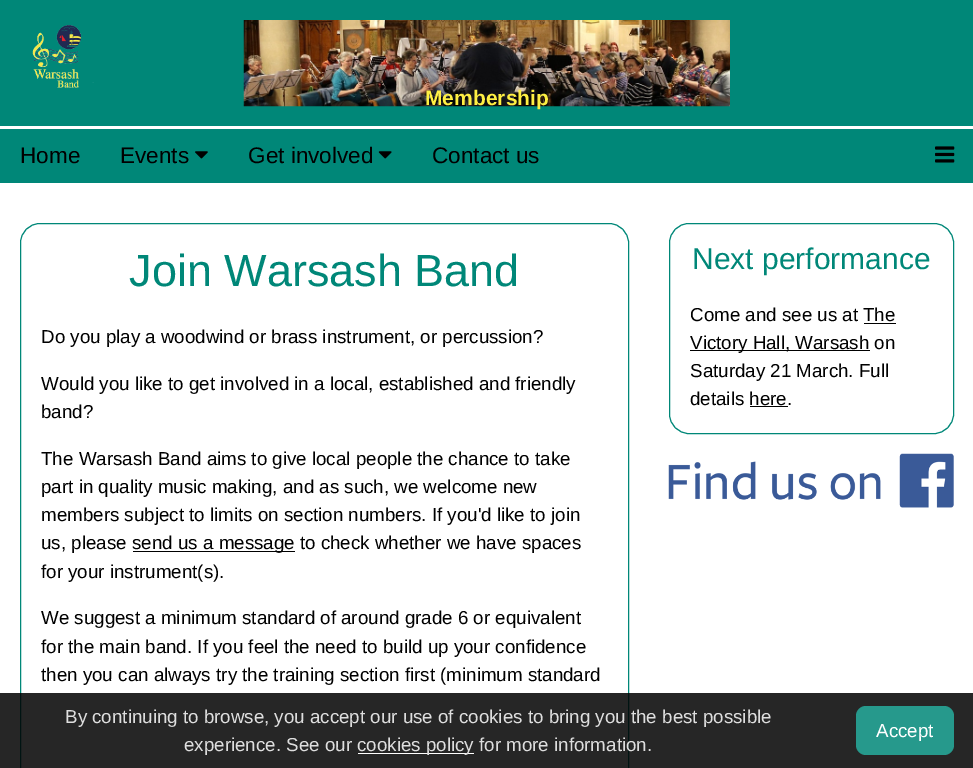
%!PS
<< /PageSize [973 768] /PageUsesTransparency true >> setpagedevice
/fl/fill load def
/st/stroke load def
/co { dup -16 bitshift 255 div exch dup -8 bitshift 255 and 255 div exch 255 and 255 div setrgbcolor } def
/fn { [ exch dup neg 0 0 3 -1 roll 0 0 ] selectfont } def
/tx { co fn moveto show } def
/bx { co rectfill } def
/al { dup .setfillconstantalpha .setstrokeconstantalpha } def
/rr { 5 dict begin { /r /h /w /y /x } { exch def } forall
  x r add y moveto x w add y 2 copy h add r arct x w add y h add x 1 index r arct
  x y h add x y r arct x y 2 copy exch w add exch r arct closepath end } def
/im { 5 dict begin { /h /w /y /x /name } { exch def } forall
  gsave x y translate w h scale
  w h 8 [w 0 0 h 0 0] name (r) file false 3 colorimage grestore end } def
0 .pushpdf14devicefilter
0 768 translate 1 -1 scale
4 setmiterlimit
0 0 973 768 16#FFFFFF bx
0 0 973 126 16#008778 bx
(media/1.raw) 32 25 62 63 im
(media/2.raw) 243 20 487 87 im
0 129 973 54 16#008778 bx
(media/3.raw) 195 151 13 8 im
(media/4.raw) 378 151 14 8 im
(media/5.raw) 935 146 20 17 im
20.5 223.5 608 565 19.5 rr st
133 551 162 1 16#000000 bx
16#008778 co
669.5 223.5 284 210 19.5 rr st
864 323 32 1 16#000000 bx
690 350 180 1 16#000000 bx
750 406 38 1 16#000000 bx
(media/6.raw) 668 453 286 55 im
0.85 al
0 693 973 75 16#000000 bx
1 al
358 753 116 1 16#FFFFFF bx
16#26998C co
856 706 98 49 10 rr fl
(Membership) 425 105 /LiberationSans-Bold 21 16#FFF043 tx
(Home) 20 163 /LiberationSans-Regular 22.5 16#000000 tx
(Events) 120 163 /LiberationSans-Regular 22.5 16#000000 tx
(Get involved) 248 163 /LiberationSans-Regular 22.5 16#000000 tx
(Contact us) 432 163 /LiberationSans-Regular 22.5 16#000000 tx
(Join Warsash Band) 129 286 /LiberationSans-Regular 45 16#008778 tx
(Do you play a woodwind or brass instrument, or percussion?) 41 343 /LiberationSans-Regular 18.75 16#000000 tx
(Would you like to get involved in a local, established and friendly) 41 390 /LiberationSans-Regular 18.75 16#000000 tx
(band?) 41 418 /LiberationSans-Regular 18.75 16#000000 tx
(The Warsash Band aims to give local people the chance to take) 41 465 /LiberationSans-Regular 18.75 16#000000 tx
(part in quality music making, and as such, we welcome new) 41 493 /LiberationSans-Regular 18.75 16#000000 tx
(members subject to limits on section numbers. If you'd like to join) 41 521 /LiberationSans-Regular 18.75 16#000000 tx
(us, please) 41 549 /LiberationSans-Regular 18.75 16#000000 tx
(send us a message to check whether we have spaces) 132 549 /LiberationSans-Regular 18.75 16#000000 tx
(for your instrument\(s\).) 41 578 /LiberationSans-Regular 18.75 16#000000 tx
(We suggest a minimum standard of around grade 6 or equivalent) 41 624 /LiberationSans-Regular 18.75 16#000000 tx
(for the main band. If you feel the need to build up your confidence) 41 653 /LiberationSans-Regular 18.75 16#000000 tx
(then you can always try the training section first \(minimum standard) 41 681 /LiberationSans-Regular 18.75 16#000000 tx
(Next performance) 692 269 /LiberationSans-Regular 30 16#008778 tx
(Come and see us at The) 690 321 /LiberationSans-Regular 18.75 16#000000 tx
(Victory Hall, Warsash on) 690 349 /LiberationSans-Regular 18.75 16#000000 tx
(Saturday 21 March. Full) 690 377 /LiberationSans-Regular 18.75 16#000000 tx
(details here.) 690 405 /LiberationSans-Regular 18.75 16#000000 tx
(By continuing to browse, you accept our use of cookies to bring you the best possible) 65 723 /LiberationSans-Regular 18.75 16#DEDEDE tx
(experience. See our) 184 751 /LiberationSans-Regular 18.75 16#DEDEDE tx
(cookies policy) 357 751 /LiberationSans-Regular 18.75 16#DEDEDE tx
(for more information.) 479 751 /LiberationSans-Regular 18.75 16#DEDEDE tx
(Accept) 876 737 /LiberationSans-Regular 18.75 16#FFFFFF tx
.poppdf14devicefilter showpage
